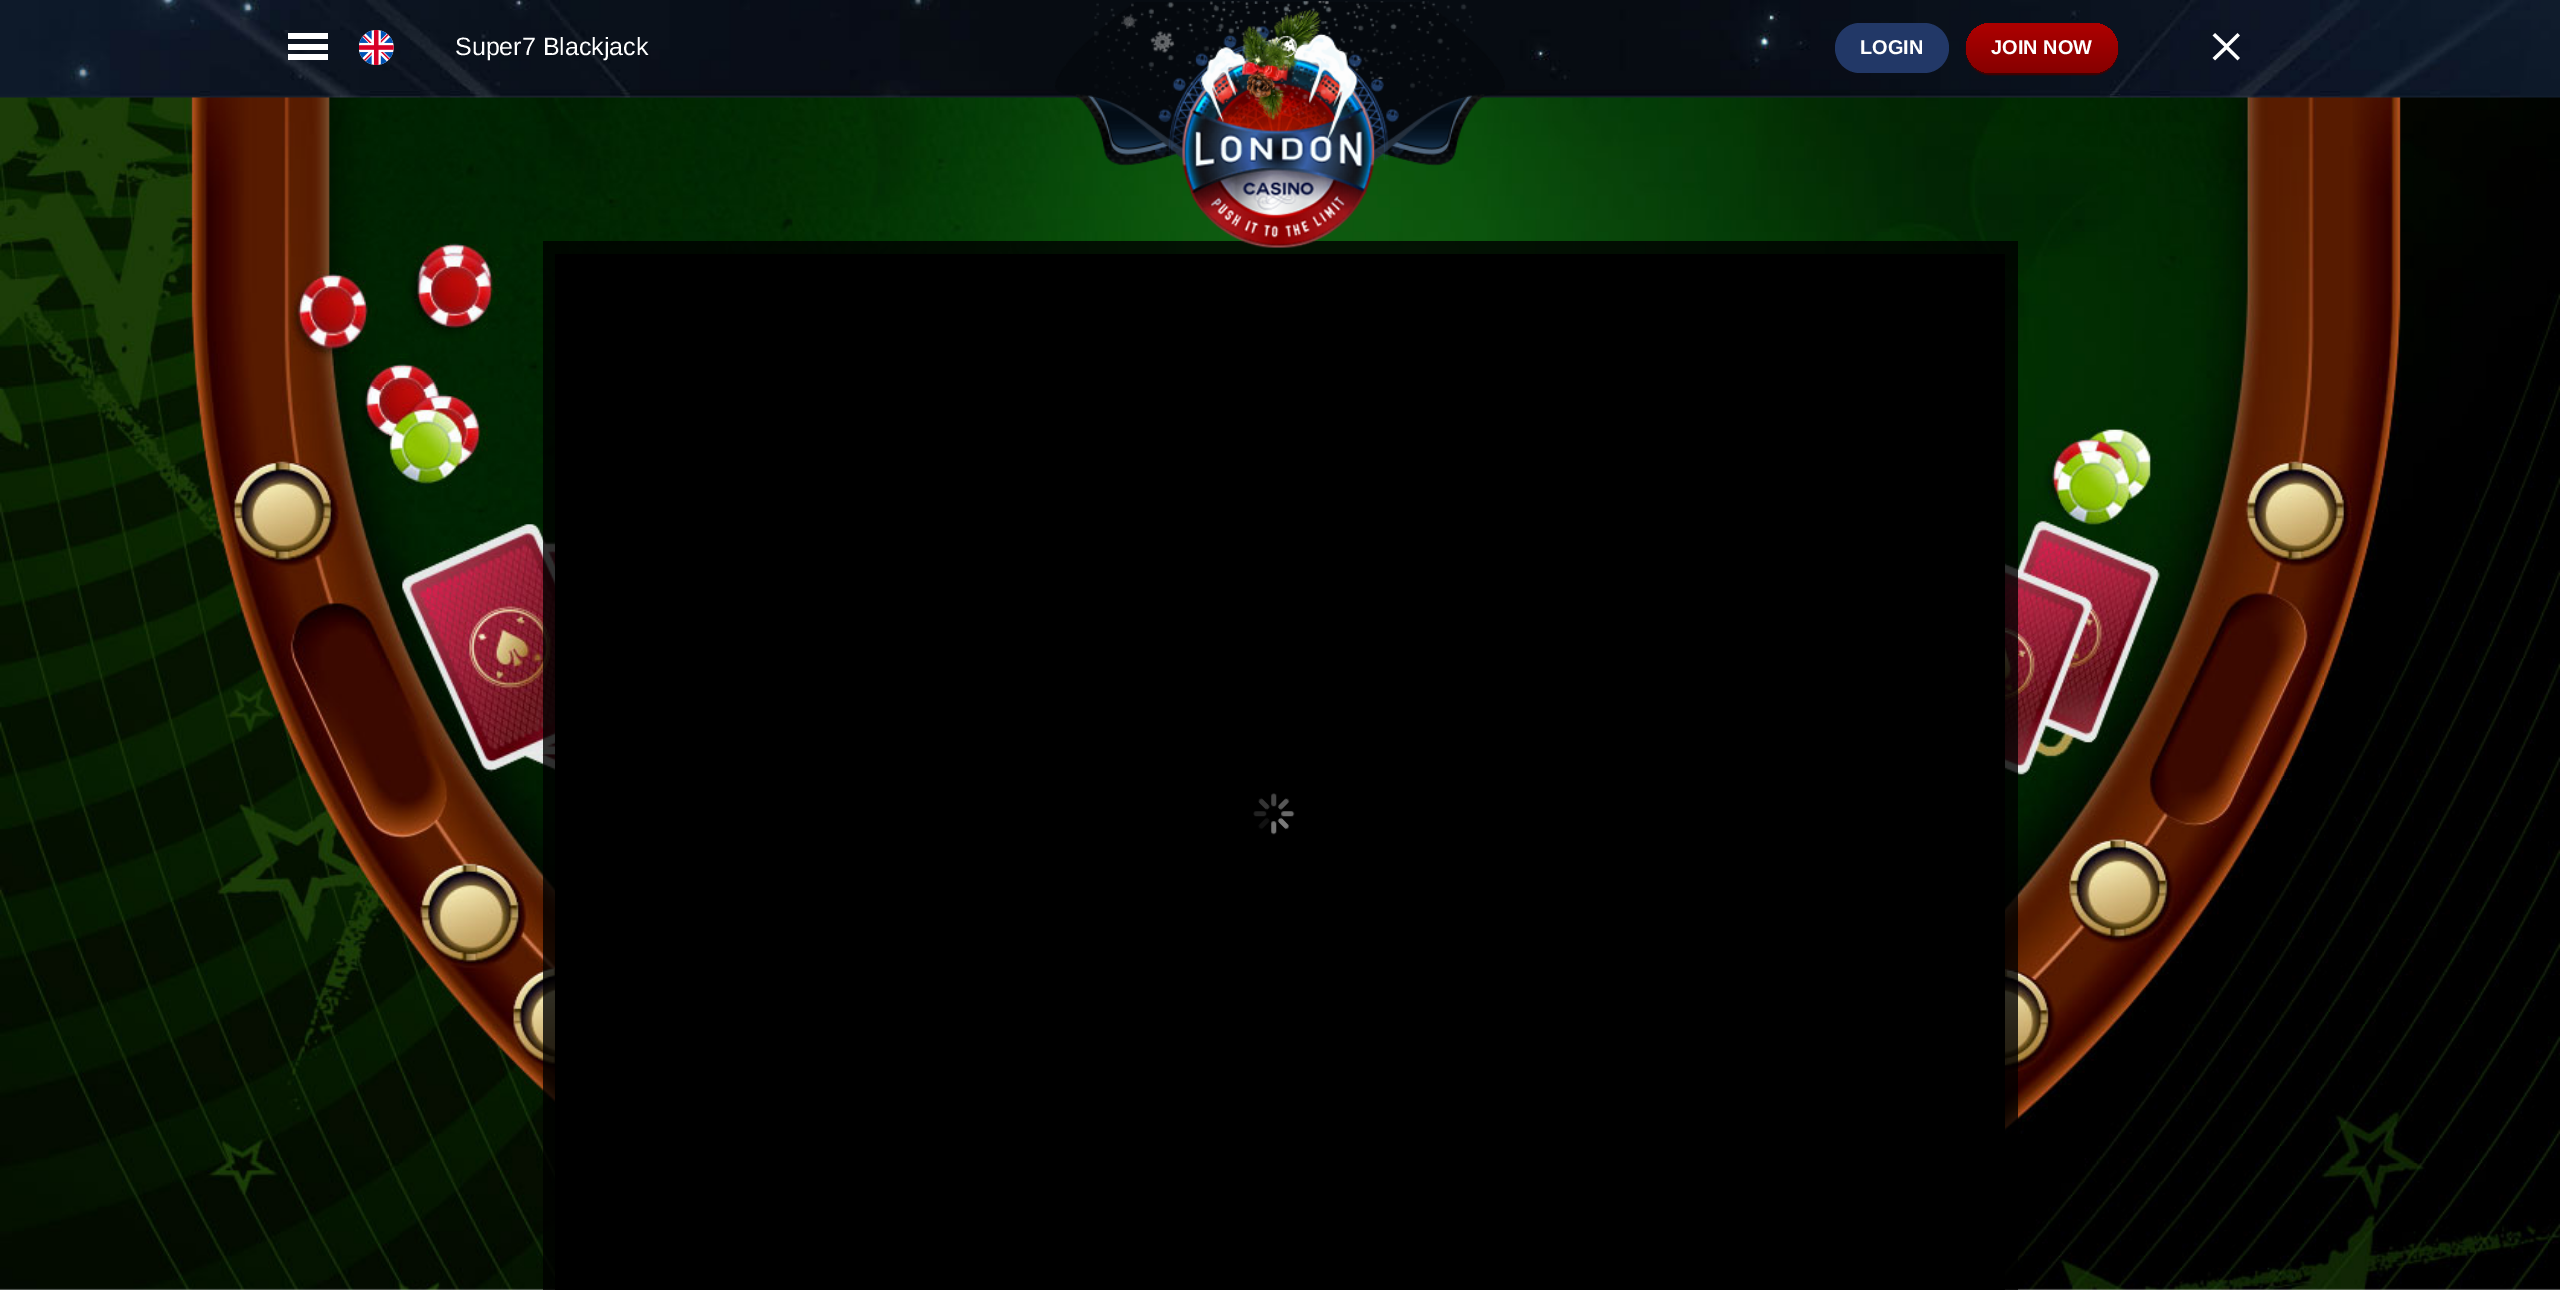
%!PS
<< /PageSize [2560 1290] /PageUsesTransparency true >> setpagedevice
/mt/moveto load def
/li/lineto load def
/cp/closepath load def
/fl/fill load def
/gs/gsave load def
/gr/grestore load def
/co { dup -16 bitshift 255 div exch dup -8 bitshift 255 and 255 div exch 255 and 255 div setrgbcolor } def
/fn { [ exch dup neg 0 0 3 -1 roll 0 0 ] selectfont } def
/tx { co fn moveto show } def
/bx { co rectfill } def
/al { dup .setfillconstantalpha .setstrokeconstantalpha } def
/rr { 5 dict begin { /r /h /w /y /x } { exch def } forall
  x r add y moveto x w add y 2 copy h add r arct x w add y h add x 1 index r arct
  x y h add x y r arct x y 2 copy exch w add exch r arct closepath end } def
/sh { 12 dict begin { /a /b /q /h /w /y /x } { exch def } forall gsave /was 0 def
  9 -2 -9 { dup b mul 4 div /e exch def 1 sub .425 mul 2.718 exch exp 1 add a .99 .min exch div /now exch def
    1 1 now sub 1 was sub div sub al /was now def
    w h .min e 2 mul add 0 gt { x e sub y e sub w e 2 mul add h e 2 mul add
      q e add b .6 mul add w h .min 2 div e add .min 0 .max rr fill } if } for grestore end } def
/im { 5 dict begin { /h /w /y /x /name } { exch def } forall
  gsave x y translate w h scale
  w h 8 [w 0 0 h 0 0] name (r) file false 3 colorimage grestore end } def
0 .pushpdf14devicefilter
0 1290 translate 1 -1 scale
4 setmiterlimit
0 0 2560 1290 16#FFFFFF bx
(media/1.raw) 0 97 2560 1193 im
(media/3.raw) 0 0 2560 98 im
(media/2.raw) 2212 33 28 28 im
(media/5.raw) 1055 2 450 164 im
0.8 al
543 241 1475 1049 16#000000 bx
1 al
(media/6.raw) 1155 9 250 239 im
(media/4.raw) 1094 1 379 120 im
16#FFFFFF co
288 60 mt 288 54 li 328 54 li 328 60 li cp 288 44 mt 328 44 li 328 50 li 288 50 li cp 288 33 mt 328 33 li 328 39 li 288 39 li cp fl
(media/7.raw) 359 30 35 35 im
16#223867 co
1835 23 114 50 25 rr fl
16#440000 co
1966 25 152 50 25 .5 1 sh
gs 1966 23 152 50 25 rr clip newpath
<< /ShadingType 2 /ColorSpace /DeviceRGB /Coords [2042 22 2042 73] /Extend [true true] /Function << /FunctionType 3 /Domain [0 1] /Functions [<< /FunctionType 2 /Domain [0 1] /C0 [.659 .004 .004] /C1 [.675 0 0] /N 1 >> << /FunctionType 2 /Domain [0 1] /C0 [.675 0 0] /C1 [.667 0 0] /N 1 >> << /FunctionType 2 /Domain [0 1] /C0 [.667 0 0] /C1 [.525 0 0] /N 1 >>] /Bounds [.03 .13] /Encode [0 1 0 1 0 1] >> >> shfill gr
(media/8.raw) 555 254 1450 1036 im
(Super7 Blackjack) 455 55 /LiberationSans-Regular 25 16#FFFFFF tx
(LOGIN) 1860 54 /LiberationSans-Bold 20 16#FFFFFF tx
(JOIN NOW) 1991 54 /LiberationSans-Bold 20 16#FFFFFF tx
.poppdf14devicefilter showpage
